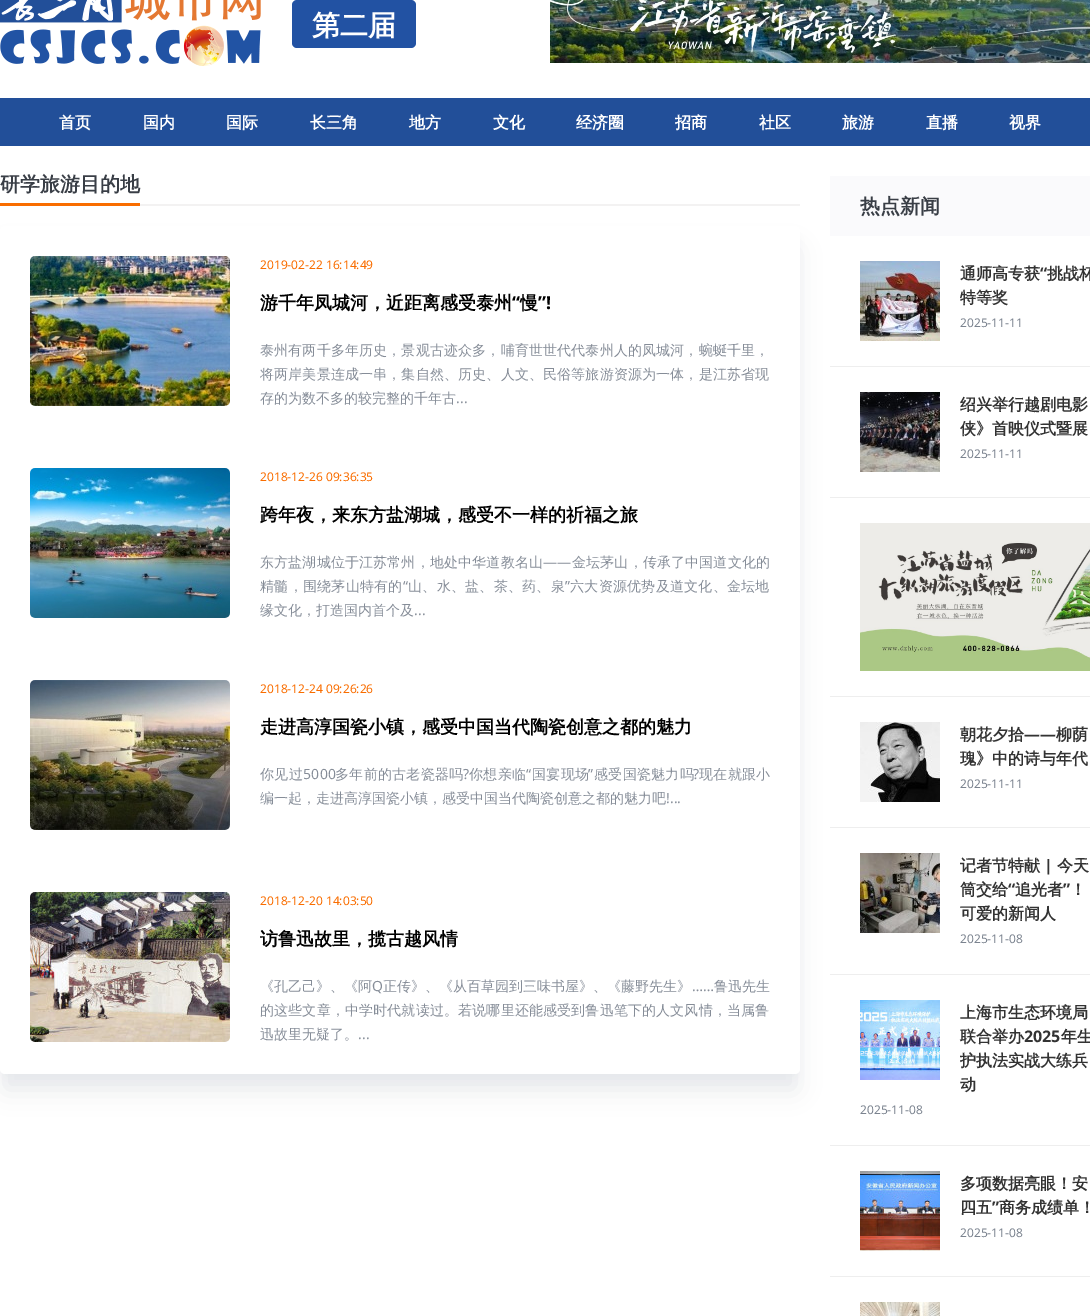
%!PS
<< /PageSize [1090 1316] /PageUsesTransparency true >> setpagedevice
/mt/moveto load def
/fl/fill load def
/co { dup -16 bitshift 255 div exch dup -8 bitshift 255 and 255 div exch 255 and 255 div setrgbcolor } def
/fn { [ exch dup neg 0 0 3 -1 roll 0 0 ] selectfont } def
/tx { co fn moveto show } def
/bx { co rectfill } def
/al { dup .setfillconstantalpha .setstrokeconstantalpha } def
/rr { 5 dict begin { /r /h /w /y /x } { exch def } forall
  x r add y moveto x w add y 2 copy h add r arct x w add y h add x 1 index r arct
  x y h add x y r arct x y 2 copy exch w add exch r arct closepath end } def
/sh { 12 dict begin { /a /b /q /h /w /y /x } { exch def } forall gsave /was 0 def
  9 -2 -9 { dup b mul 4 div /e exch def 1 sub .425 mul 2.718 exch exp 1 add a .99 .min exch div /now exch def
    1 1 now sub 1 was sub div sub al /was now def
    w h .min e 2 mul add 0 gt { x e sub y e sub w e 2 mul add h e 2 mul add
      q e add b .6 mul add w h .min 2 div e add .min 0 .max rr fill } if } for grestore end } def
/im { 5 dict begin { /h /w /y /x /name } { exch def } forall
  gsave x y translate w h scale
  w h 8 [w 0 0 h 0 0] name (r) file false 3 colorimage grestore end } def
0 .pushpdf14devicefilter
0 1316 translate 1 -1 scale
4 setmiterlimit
0 0 1090 1316 16#FFFFFF bx
(media/1.raw) 0 0 261 66 im
16#2252A3 co
292 0 124 48 5 rr fl
(media/2.raw) 550 0 540 63 im
0 98 1090 48 16#224F99 bx
140 204 660 2 16#F3F2F2 bx
0 203 140 3 16#F96D00 bx
16#E5E7EB co
6 240 788 836 0 5 1 sh
5 251 790 838 0 12.5 1 sh
16#FFFFFF co
0 226 800 848 5 rr fl
(media/3.raw) 30 256 200 150 im
(media/4.raw) 30 468 200 150 im
(media/5.raw) 30 680 200 150 im
(media/6.raw) 30 892 200 150 im
830 176 260 60 16#FAFAFC bx
830 366 260 1 16#EEEEEE bx
(media/7.raw) 860 261 80 80 im
830 497 260 1 16#EEEEEE bx
(media/8.raw) 860 392 80 80 im
830 696 260 1 16#EEEEEE bx
(media/9.raw) 860 523 230 148 im
830 827 260 1 16#EEEEEE bx
(media/10.raw) 860 722 80 80 im
830 974 260 1 16#EEEEEE bx
(media/11.raw) 860 853 80 80 im
830 1145 260 1 16#EEEEEE bx
(media/12.raw) 860 1000 80 80 im
830 1276 260 1 16#EEEEEE bx
(media/13.raw) 860 1171 80 80 im
(media/14.raw) 860 1302 80 14 im
(第二届) 312 35 /WenQuanYiZenHei-Bold 28 16#FFFFFF tx
(首页) 59 128 /WenQuanYiZenHei-Bold 16 16#FFFFFF tx
(国内) 143 128 /WenQuanYiZenHei-Bold 16 16#FFFFFF tx
(国际) 226 128 /WenQuanYiZenHei-Bold 16 16#FFFFFF tx
(长三角) 310 128 /WenQuanYiZenHei-Bold 16 16#FFFFFF tx
(地方) 409 128 /WenQuanYiZenHei-Bold 16 16#FFFFFF tx
(文化) 493 128 /WenQuanYiZenHei-Bold 16 16#FFFFFF tx
(经济圈) 576 128 /WenQuanYiZenHei-Bold 16 16#FFFFFF tx
(招商) 675 128 /WenQuanYiZenHei-Bold 16 16#FFFFFF tx
(社区) 759 128 /WenQuanYiZenHei-Bold 16 16#FFFFFF tx
(旅游) 842 128 /WenQuanYiZenHei-Bold 16 16#FFFFFF tx
(直播) 926 128 /WenQuanYiZenHei-Bold 16 16#FFFFFF tx
(视界) 1009 128 /WenQuanYiZenHei-Bold 16 16#FFFFFF tx
(研学旅游目的地) 0 191 /WenQuanYiZenHei-Bold 20 16#393E46 tx
(2019-02-22 16:14:49) 260 269 /NotoSans-Regular 12 16#F96D00 tx
(游千年凤城河，近距离感受泰州) 260 309 /WenQuanYiZenHei-Bold 18 16#000000 tx
(“) 512 309 /NotoSans-Bold 18 16#000000 tx
(慢) 520 309 /WenQuanYiZenHei-Bold 18 16#000000 tx
(”!) 538 309 /NotoSans-Bold 18 16#000000 tx
/WenQuanYiZenHei-Medium 14 fn
16#868D98 co
260 355 mt .15 0 (泰州有两千多年历史，景观古迹众多，哺育世世代代泰州人的凤城河，蜿蜒千里，) ashow
260 379 mt .15 0 (将两岸美景连成一串，集自然、历史、人文、民俗等旅游资源为一体，是江苏省现) ashow
(存的为数不多的较完整的千年古) 260 403 /WenQuanYiZenHei-Medium 14 16#868D98 tx
(...) 456 403 /NotoSans-Regular 14 16#868D98 tx
(2018-12-26 09:36:35) 260 481 /NotoSans-Regular 12 16#F96D00 tx
(跨年夜，来东方盐湖城，感受不一样的祈福之旅) 260 521 /WenQuanYiZenHei-Bold 18 16#000000 tx
/WenQuanYiZenHei-Medium 14 fn
16#868D98 co
260 567 mt .15 0 (东方盐湖城位于江苏常州，地处中华道教名山) ashow
/NotoSans-Regular 14 fn
543 567 mt .15 0 (——) ashow
/WenQuanYiZenHei-Medium 14 fn
572 567 mt .15 0 (金坛茅山，传承了中国道文化的) ashow
260 591 mt .25 0 (精髓，围绕茅山特有的) ashow
/NotoSans-Regular 14 fn
403 591 mt .25 0 (“) ashow
/WenQuanYiZenHei-Medium 14 fn
408 591 mt .25 0 (山、水、盐、茶、药、泉) ashow
/NotoSans-Regular 14 fn
565 591 mt .25 0 (”) ashow
/WenQuanYiZenHei-Medium 14 fn
570 591 mt .25 0 (六大资源优势及道文化、金坛地) ashow
(缘文化，打造国内首个及) 260 615 /WenQuanYiZenHei-Medium 14 16#868D98 tx
(...) 414 615 /NotoSans-Regular 14 16#868D98 tx
(2018-12-24 09:26:26) 260 693 /NotoSans-Regular 12 16#F96D00 tx
(走进高淳国瓷小镇，感受中国当代陶瓷创意之都的魅力) 260 733 /WenQuanYiZenHei-Bold 18 16#000000 tx
/WenQuanYiZenHei-Medium 14 fn
16#868D98 co
260 779 mt .25 0 (你见过) ashow
/NotoSans-Regular 14 fn
303 779 mt .25 0 (5000) ashow
/WenQuanYiZenHei-Medium 14 fn
335 779 mt .25 0 (多年前的古老瓷器吗) ashow
/NotoSans-Regular 14 fn
463 779 mt .25 0 (?) ashow
/WenQuanYiZenHei-Medium 14 fn
469 779 mt .25 0 (你想亲临) ashow
/NotoSans-Regular 14 fn
526 779 mt .25 0 (“) ashow
/WenQuanYiZenHei-Medium 14 fn
532 779 mt .25 0 (国宴现场) ashow
/NotoSans-Regular 14 fn
588 779 mt .25 0 (”) ashow
/WenQuanYiZenHei-Medium 14 fn
594 779 mt .25 0 (感受国瓷魅力吗) ashow
/NotoSans-Regular 14 fn
693 779 mt .25 0 (?) ashow
/WenQuanYiZenHei-Medium 14 fn
699 779 mt .25 0 (现在就跟小) ashow
(编一起，走进高淳国瓷小镇，感受中国当代陶瓷创意之都的魅力吧) 260 803 /WenQuanYiZenHei-Medium 14 16#868D98 tx
(!...) 666 803 /NotoSans-Regular 14 16#868D98 tx
(2018-12-20 14:03:50) 260 905 /NotoSans-Regular 12 16#F96D00 tx
(访鲁迅故里，揽古越风情) 260 945 /WenQuanYiZenHei-Bold 18 16#000000 tx
(《孔乙己》、《阿) 260 991 /WenQuanYiZenHei-Medium 14 16#868D98 tx
(Q) 372 991 /NotoSans-Regular 14 16#868D98 tx
(正传》、《从百草园到三味书屋》、《藤野先生》) 383 991 /WenQuanYiZenHei-Medium 14 16#868D98 tx
(……) 692 991 /NotoSans-Regular 14 16#868D98 tx
(鲁迅先生) 714 991 /WenQuanYiZenHei-Medium 14 16#868D98 tx
260 1015 mt .15 0 (的这些文章，中学时代就读过。若说哪里还能感受到鲁迅笔下的人文风情，当属鲁) ashow
(迅故里无疑了。) 260 1039 /WenQuanYiZenHei-Medium 14 16#868D98 tx
(...) 358 1039 /NotoSans-Regular 14 16#868D98 tx
(热点新闻) 860 213 /WenQuanYiZenHei-Bold 20 16#393E46 tx
(通师高专获) 960 279 /WenQuanYiZenHei-Bold 16 16#333333 tx
(“) 1040 279 /NotoSans-Bold 16 16#333333 tx
(挑战杯) 1047 279 /WenQuanYiZenHei-Bold 16 16#333333 tx
(特等奖) 960 303 /WenQuanYiZenHei-Bold 16 16#333333 tx
(2025-11-11) 960 327 /NotoSans-Regular 12 16#7B838F tx
(绍兴举行越剧电影) 960 410 /WenQuanYiZenHei-Bold 16 16#333333 tx
(侠》首映仪式暨展) 960 434 /WenQuanYiZenHei-Bold 16 16#333333 tx
(2025-11-11) 960 458 /NotoSans-Regular 12 16#7B838F tx
(朝花夕拾) 960 740 /WenQuanYiZenHei-Bold 16 16#333333 tx
(——) 1024 740 /NotoSans-Bold 16 16#333333 tx
(柳荫) 1056 740 /WenQuanYiZenHei-Bold 16 16#333333 tx
(瑰》中的诗与年代) 960 764 /WenQuanYiZenHei-Bold 16 16#333333 tx
(2025-11-11) 960 788 /NotoSans-Regular 12 16#7B838F tx
(记者节特献) 960 871 /WenQuanYiZenHei-Bold 16 16#333333 tx
(|) 1044 871 /NotoSans-Bold 16 16#333333 tx
(今天) 1057 871 /WenQuanYiZenHei-Bold 16 16#333333 tx
(筒交给) 960 895 /WenQuanYiZenHei-Bold 16 16#333333 tx
(“) 1008 895 /NotoSans-Bold 16 16#333333 tx
(追光者) 1015 895 /WenQuanYiZenHei-Bold 16 16#333333 tx
(”) 1063 895 /NotoSans-Bold 16 16#333333 tx
(！) 1070 895 /WenQuanYiZenHei-Bold 16 16#333333 tx
(可爱的新闻人) 960 919 /WenQuanYiZenHei-Bold 16 16#333333 tx
(2025-11-08) 960 943 /NotoSans-Regular 12 16#7B838F tx
(上海市生态环境局) 960 1018 /WenQuanYiZenHei-Bold 16 16#333333 tx
(联合举办) 960 1042 /WenQuanYiZenHei-Bold 16 16#333333 tx
(2025) 1024 1042 /NotoSans-Bold 16 16#333333 tx
(年生) 1061 1042 /WenQuanYiZenHei-Bold 16 16#333333 tx
(护执法实战大练兵) 960 1066 /WenQuanYiZenHei-Bold 16 16#333333 tx
(动) 960 1090 /WenQuanYiZenHei-Bold 16 16#333333 tx
(2025-11-08) 860 1114 /NotoSans-Regular 12 16#7B838F tx
(多项数据亮眼！安) 960 1189 /WenQuanYiZenHei-Bold 16 16#333333 tx
(四五) 960 1213 /WenQuanYiZenHei-Bold 16 16#333333 tx
(”) 992 1213 /NotoSans-Bold 16 16#333333 tx
(商务成绩单！) 999 1213 /WenQuanYiZenHei-Bold 16 16#333333 tx
(2025-11-08) 960 1237 /NotoSans-Regular 12 16#7B838F tx
.poppdf14devicefilter showpage
